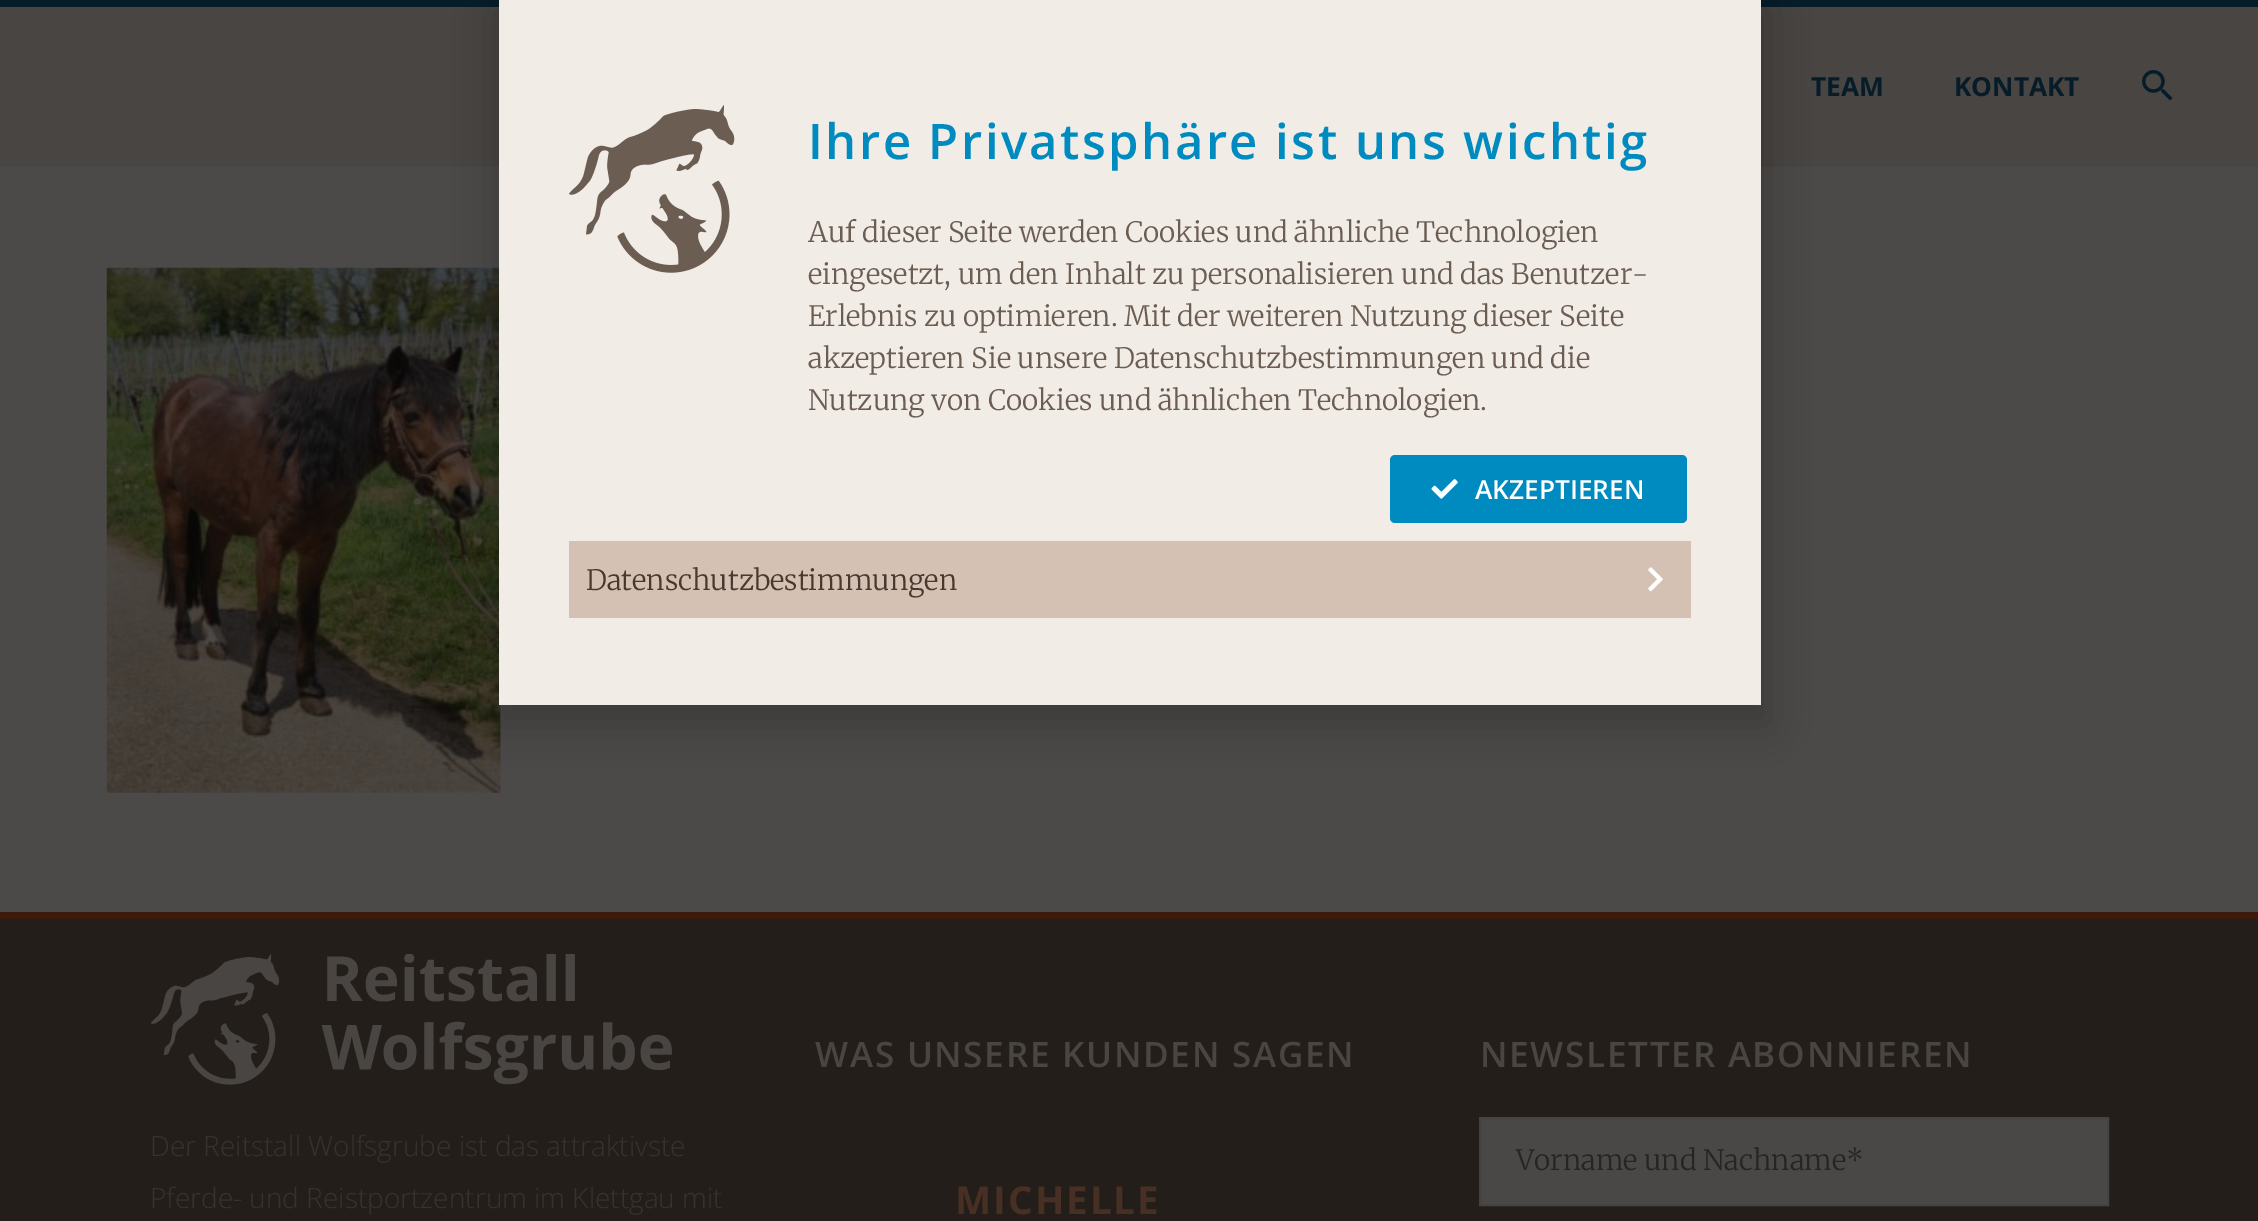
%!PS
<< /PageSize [2258 1221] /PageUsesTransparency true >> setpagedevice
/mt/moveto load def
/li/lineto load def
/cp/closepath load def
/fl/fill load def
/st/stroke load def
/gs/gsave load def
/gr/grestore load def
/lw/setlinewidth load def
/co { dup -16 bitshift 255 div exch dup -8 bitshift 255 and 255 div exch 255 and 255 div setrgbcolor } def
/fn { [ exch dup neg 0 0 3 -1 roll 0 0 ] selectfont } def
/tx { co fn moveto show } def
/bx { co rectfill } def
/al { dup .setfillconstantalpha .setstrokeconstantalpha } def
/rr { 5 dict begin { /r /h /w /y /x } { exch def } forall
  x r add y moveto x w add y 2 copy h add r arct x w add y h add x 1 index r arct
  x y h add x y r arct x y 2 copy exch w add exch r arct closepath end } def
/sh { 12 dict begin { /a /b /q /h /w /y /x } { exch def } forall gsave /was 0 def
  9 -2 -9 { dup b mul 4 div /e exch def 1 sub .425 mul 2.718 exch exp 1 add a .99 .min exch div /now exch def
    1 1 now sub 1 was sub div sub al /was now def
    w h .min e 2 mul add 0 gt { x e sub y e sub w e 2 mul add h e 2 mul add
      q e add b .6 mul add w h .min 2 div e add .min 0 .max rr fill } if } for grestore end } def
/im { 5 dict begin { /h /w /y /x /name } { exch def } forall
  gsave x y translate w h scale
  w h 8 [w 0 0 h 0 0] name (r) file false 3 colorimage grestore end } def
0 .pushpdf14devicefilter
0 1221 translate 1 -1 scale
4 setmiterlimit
0 0 2258 1221 16#484542 bx
0 0 2258 7 16#071C29 bx
0 165 2258 1 16#46423E bx
(media/1.raw) 2142 70 31 31 im
0 166 2258 746 16#4B4A49 bx
(media/2.raw) 106 267 395 526 im
0 919 2258 302 16#231E1A bx
0 912 2258 7 16#3E190E bx
(media/3.raw) 151 954 521 131 im
16#4A4846 co
1480 1118 mt 2108 1118 li 2108 1205 li 1480 1205 li cp gs fl gr
16#46423F co
2 lw
st
16#000000 co
497 9 1272 716 0 20 .2 sh
499 0 1262 705 16#F2ECE7 bx
(media/4.raw) 569 105 166 168 im
16#008BC0 co
1390 455 297 68 5 rr fl
(media/5.raw) 1431 479 27 20 im
569 541 1122 77 16#D5C1B3 bx
(media/6.raw) 1648 567 15 25 im
(TEAM) 1811 96 /OpenSans-Bold 26.25 16#071C29 tx
(KONTAKT) 1954 96 /OpenSans-Bold 26.25 16#071C29 tx
(Der Reitstall Wolfsgrube ist das attraktivste) 150 1156 /OpenSans-Light 28 16#37322E tx
(Pferde- und Reistportzentrum im Klettgau mit) 150 1208 /OpenSans-Light 28 16#37322E tx
/OpenSans-SemiBold 35 fn
16#484542 co
815 1067 mt 1.75 0 (WAS UNSERE KUNDEN SAGEN) ashow
/OpenSans-Bold 38.5 fn
16#472F23 co
955 1214 mt 2 0 (MICHELLE) ashow
/OpenSans-SemiBold 35 fn
16#484542 co
1480 1067 mt 1.75 0 (NEWSLETTER ABONNIEREN) ashow
(Vorname und Nachname*) 1516 1170 /Merriweather-Light 28 16#262523 tx
/OpenSans-SemiBold 49 fn
16#008BC0 co
808 159 mt 2.45 0 (Ihre Privatsphäre ist uns wichtig) ashow
(Auf dieser Seite werden Cookies und ähnliche Technologien) 808 242 /Merriweather-Light 28 16#6B5D52 tx
(eingesetzt, um den Inhalt zu personalisieren und das Benutzer-) 808 284 /Merriweather-Light 28 16#6B5D52 tx
(Erlebnis zu optimieren. Mit der weiteren Nutzung dieser Seite) 808 326 /Merriweather-Light 28 16#6B5D52 tx
(akzeptieren Sie unsere Datenschutzbestimmungen und die) 808 368 /Merriweather-Light 28 16#6B5D52 tx
(Nutzung von Cookies und ähnlichen Technologien.) 808 410 /Merriweather-Light 28 16#6B5D52 tx
(AKZEPTIEREN) 1475 499 /OpenSans-SemiBold 26.25 16#FFFFFF tx
(Datenschutzbestimmungen) 586 590 /Merriweather-Light 28 16#48382D tx
.poppdf14devicefilter showpage
